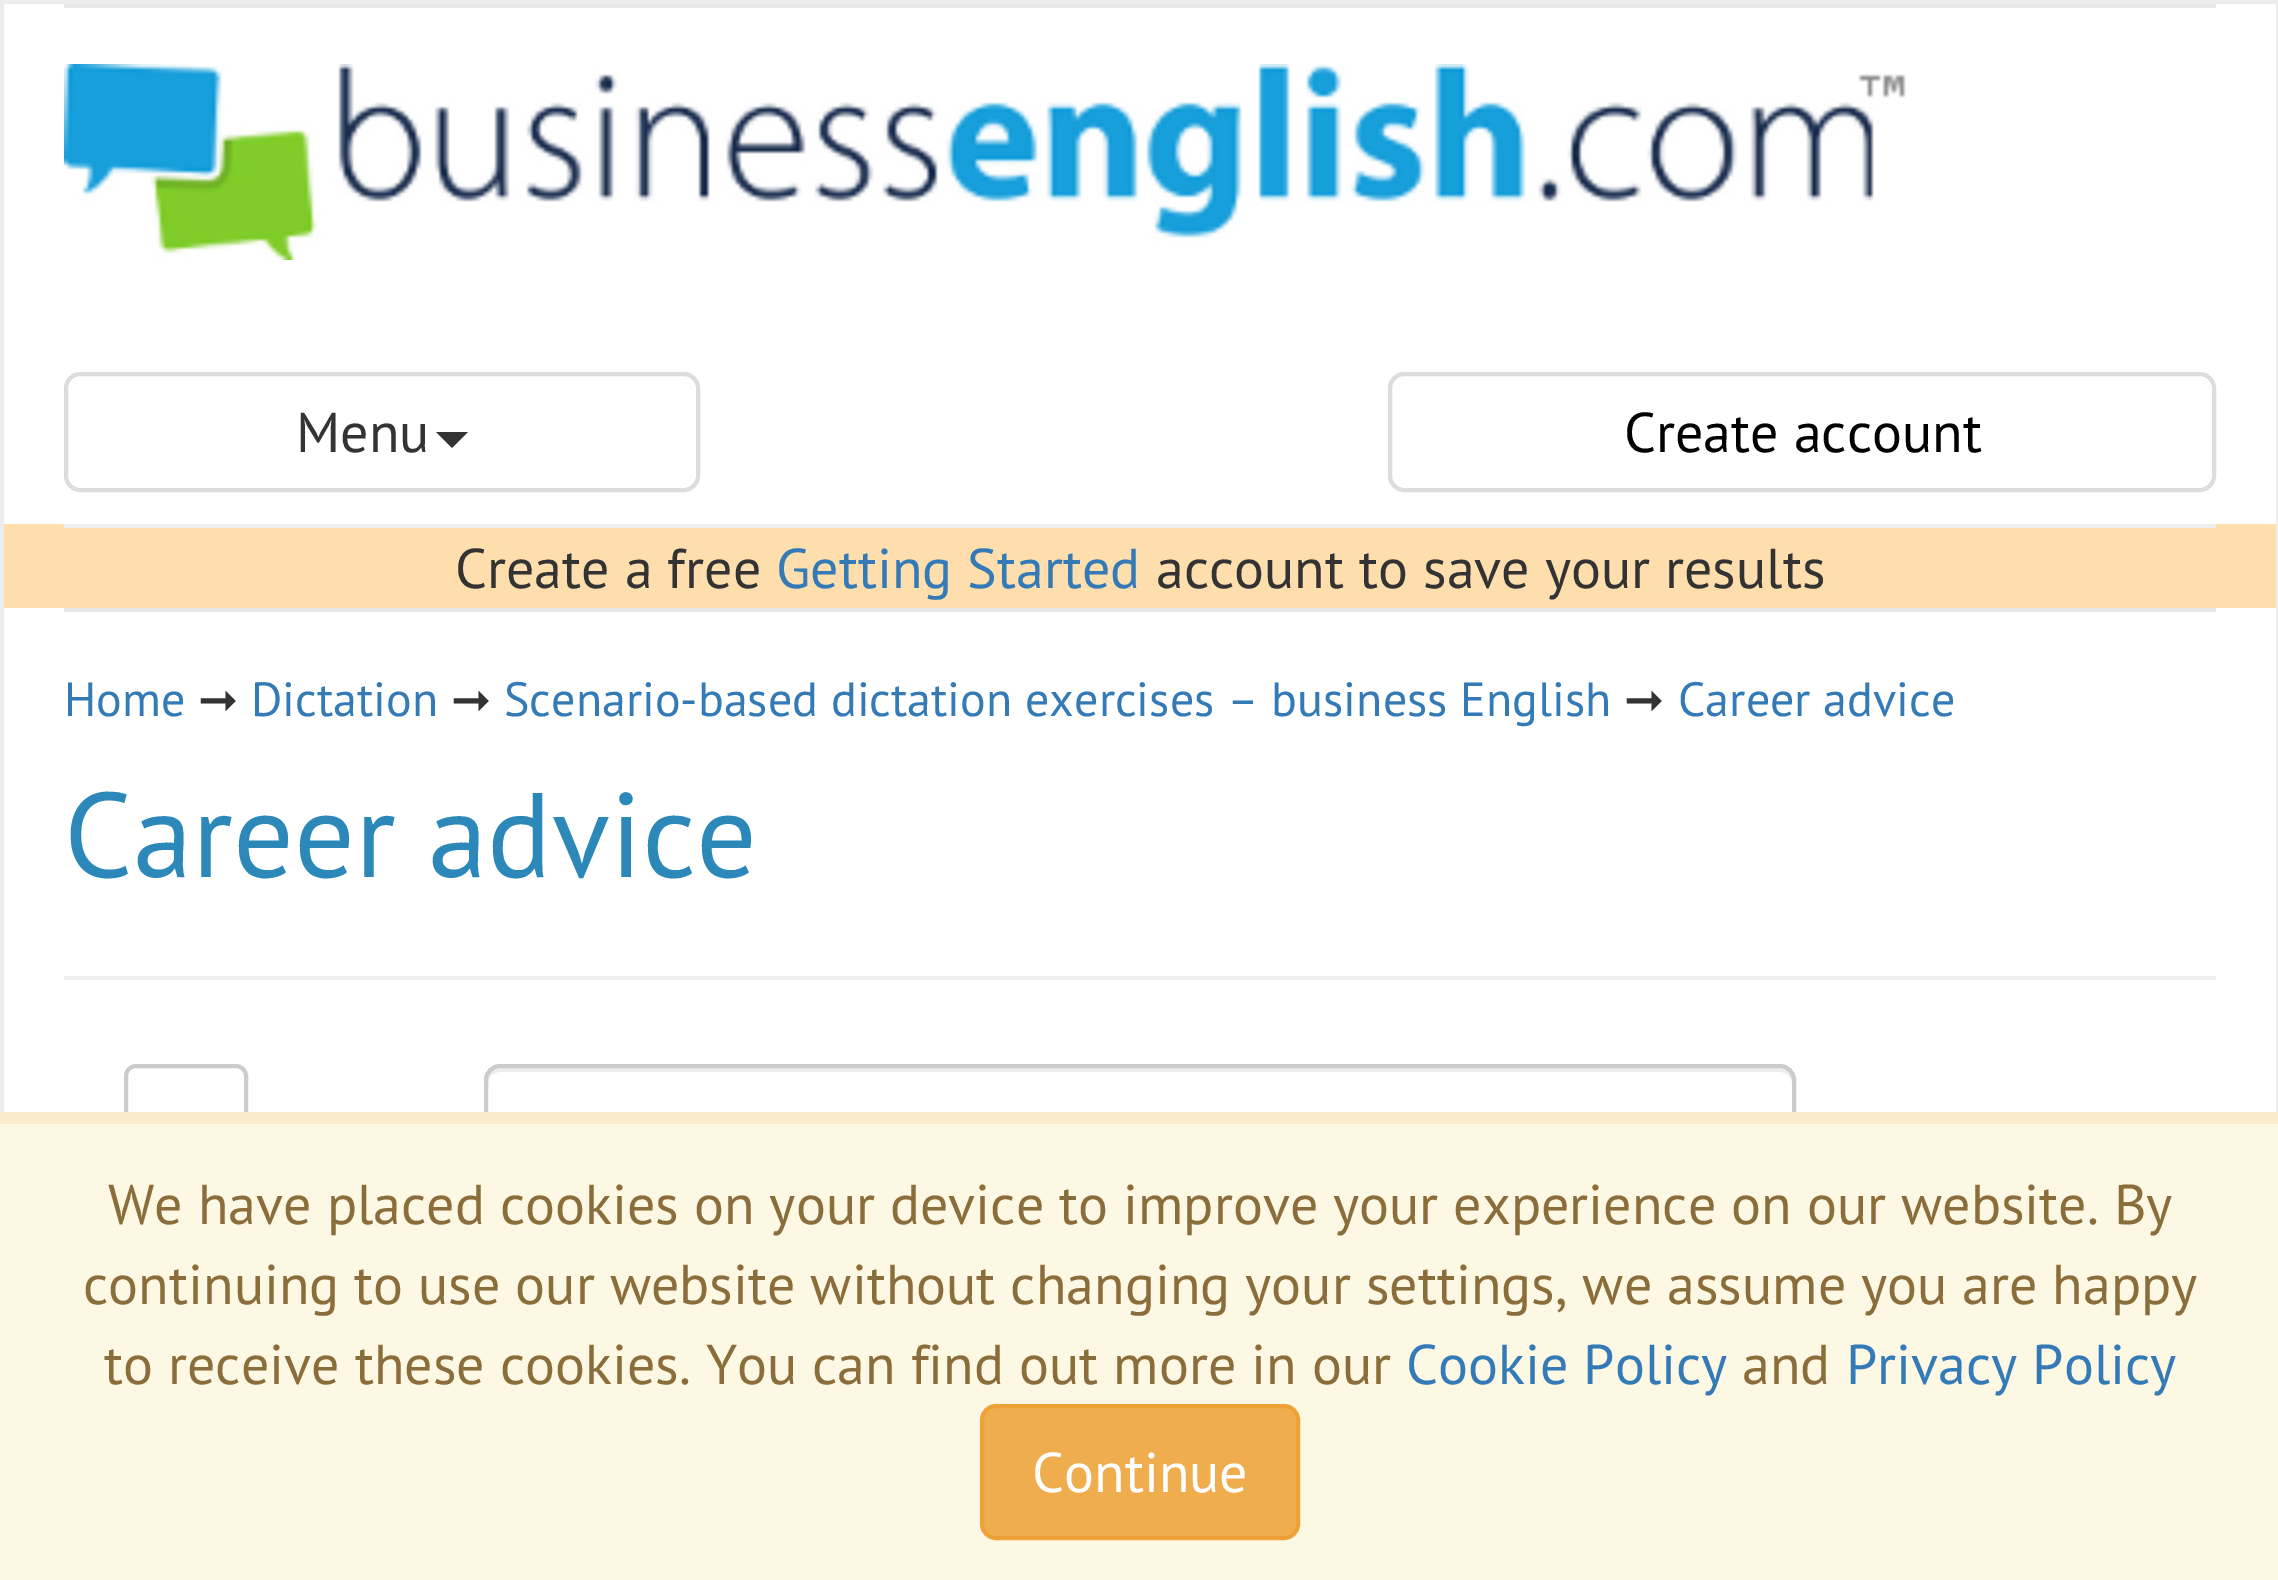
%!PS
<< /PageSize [2278 1580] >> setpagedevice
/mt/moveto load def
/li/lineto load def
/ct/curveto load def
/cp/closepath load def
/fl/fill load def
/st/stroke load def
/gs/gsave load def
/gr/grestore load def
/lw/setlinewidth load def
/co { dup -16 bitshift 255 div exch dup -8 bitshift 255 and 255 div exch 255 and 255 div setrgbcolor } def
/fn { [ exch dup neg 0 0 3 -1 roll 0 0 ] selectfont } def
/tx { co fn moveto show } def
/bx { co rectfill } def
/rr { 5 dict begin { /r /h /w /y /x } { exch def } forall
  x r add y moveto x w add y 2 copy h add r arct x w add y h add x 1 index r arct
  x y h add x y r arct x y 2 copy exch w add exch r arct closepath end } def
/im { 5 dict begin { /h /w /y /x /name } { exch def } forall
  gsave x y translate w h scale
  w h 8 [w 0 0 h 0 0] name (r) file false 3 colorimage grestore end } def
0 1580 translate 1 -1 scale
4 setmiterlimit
0 0 2278 1580 16#FFFFFF bx
16#EDEDED co
4 lw
2 2 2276 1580 rectstroke
64 4 2152 4 16#E7E7E7 bx
64 608 2152 4 16#E7E7E7 bx
(media/1.raw) 64 64 1842 196 im
16#DDDDDD co
66 374 632 116 14 rr st
16#333333 co
436 432 mt 468 432 li 452 448 li cp fl
16#DDDDDD co
1390 374 824 116 14 rr st
4 524 2272 84 16#FFDEAD bx
64 524 2152 4 16#EEEEEE bx
64 976 2152 4 16#EEEEEE bx
16#CCCCCC co
126 1066 120 116 10 rr st
16#ECECEC co
500 1072 mt 1780 1072 li 1787 1072 1792 1077 1792 1084 ct 1792 1076 1790 1068 1780 1068 ct 500 1068 li 490 1068 488 1076 488 1084 ct 488 1077 493 1072 500 1072 ct cp fl
16#CCCCCC co
486 1066 1308 132 14 rr st
0 1124 2278 456 16#FCF8E3 bx
0 1112 2278 12 16#FAEBCC bx
16#F0AD4E co
982 1406 316 132 14 rr gs fl gr
16#EEA236 co
st
(Menu) 296 452 /PTSans-Regular 56 16#333333 tx
(Create account) 1624 452 /PTSans-Regular 56 16#000000 tx
(Create a free) 455 588 /PTSans-Regular 56 16#333333 tx
(Getting Started) 776 588 /PTSans-Regular 56 16#337AB7 tx
(account to save your results) 1156 588 /PTSans-Regular 56 16#333333 tx
(Home) 64 716 /PTSans-Regular 48 16#337AB7 tx
(➞) 198 716 /DejaVuSans-Regular 48 16#333333 tx
(Dictation) 251 716 /PTSans-Regular 48 16#337AB7 tx
(➞) 451 716 /DejaVuSans-Regular 48 16#333333 tx
(Scenario-based dictation exercises – business English) 504 716 /PTSans-Regular 48 16#337AB7 tx
(➞) 1624 716 /DejaVuSans-Regular 48 16#333333 tx
(Career advice) 1678 716 /PTSans-Regular 48 16#337AB7 tx
(Career advice) 64 877 /PTSans-Regular 120 16#2C88B9 tx
(We have placed cookies on your device to improve your experience on our website. By) 108 1224 /PTSans-Regular 56 16#8A6D3B tx
(continuing to use our website without changing your settings, we assume you are happy) 83 1304 /PTSans-Regular 56 16#8A6D3B tx
(to receive these cookies. You can find out more in our) 104 1384 /PTSans-Regular 56 16#8A6D3B tx
(Cookie Policy) 1406 1384 /PTSans-Regular 56 16#337AB7 tx
(and) 1742 1384 /PTSans-Regular 56 16#8A6D3B tx
(Privacy Policy) 1846 1384 /PTSans-Regular 56 16#337AB7 tx
(Continue) 1032 1492 /PTSans-Regular 56 16#FFFFFF tx
showpage
